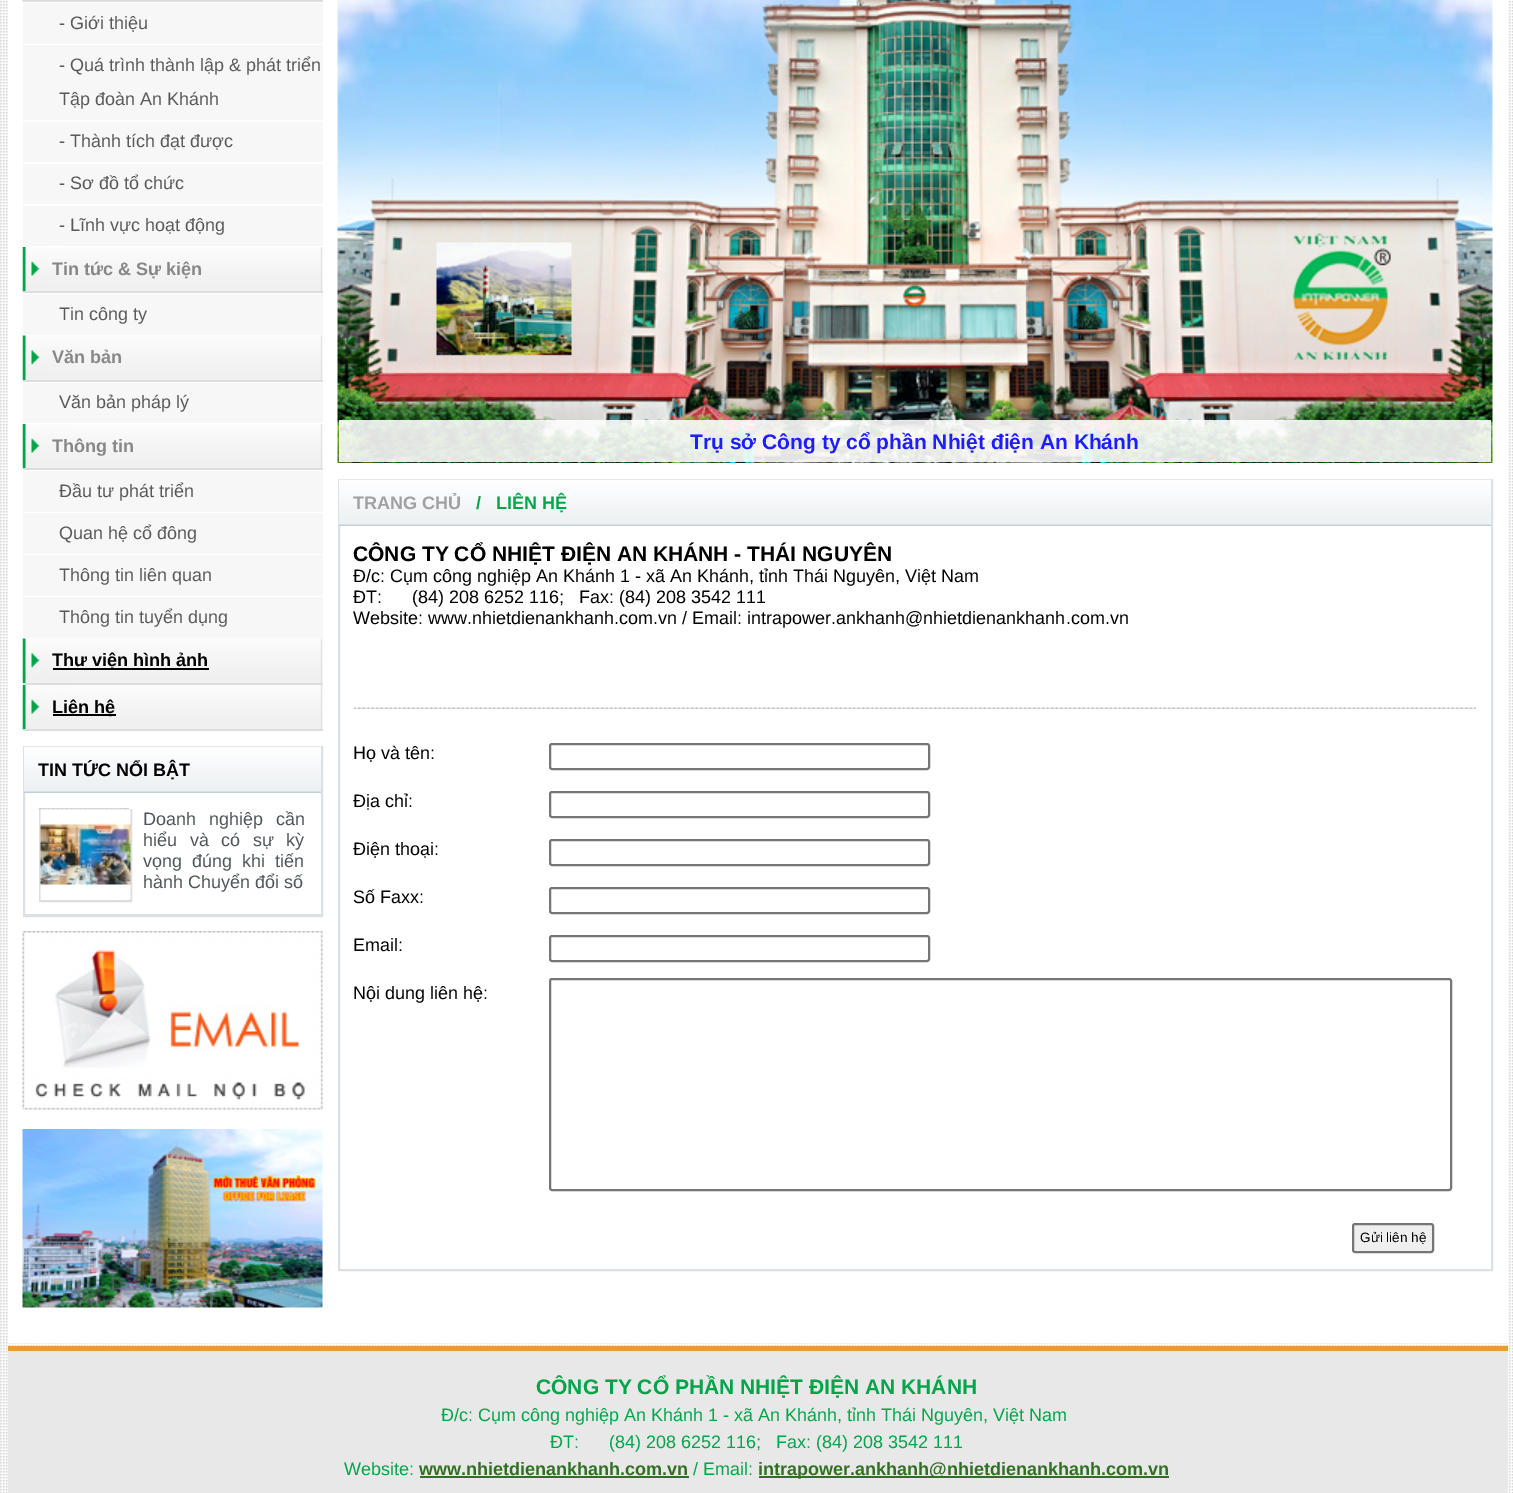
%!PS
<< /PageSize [1513 1493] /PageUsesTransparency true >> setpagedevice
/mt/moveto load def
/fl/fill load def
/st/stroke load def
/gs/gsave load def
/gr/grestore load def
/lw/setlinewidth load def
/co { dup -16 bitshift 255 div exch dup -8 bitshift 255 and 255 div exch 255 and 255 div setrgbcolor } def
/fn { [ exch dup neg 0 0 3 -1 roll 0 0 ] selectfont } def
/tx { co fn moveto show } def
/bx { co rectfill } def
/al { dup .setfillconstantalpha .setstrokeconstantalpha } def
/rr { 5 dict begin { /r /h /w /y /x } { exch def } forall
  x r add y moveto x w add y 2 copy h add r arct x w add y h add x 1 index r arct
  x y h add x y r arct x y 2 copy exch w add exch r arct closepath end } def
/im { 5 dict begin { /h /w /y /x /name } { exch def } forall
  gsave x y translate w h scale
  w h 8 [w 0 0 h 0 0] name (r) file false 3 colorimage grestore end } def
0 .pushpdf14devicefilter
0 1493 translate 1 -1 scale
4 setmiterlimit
0 0 1513 1493 16#FFFFFF bx
(media/1.raw) 0 0 1513 1493 im
8 0 1500 1343 16#FFFFFF bx
(media/2.raw) 22 0 1 1 im
23 0 300 2 16#DDDDDD bx
23 3 300 41 16#F8F7F7 bx
23 45 300 75 16#F8F7F7 bx
23 122 300 40 16#F8F7F7 bx
23 164 300 40 16#F8F7F7 bx
23 206 300 40 16#F8F7F7 bx
(media/3.raw) 22 247 301 45 im
23 291 300 2 16#DDDDDD bx
23 294 300 41 16#F8F7F7 bx
(media/4.raw) 22 335 301 46 im
23 380 300 2 16#DDDDDD bx
23 383 300 40 16#F8F7F7 bx
(media/3.raw) 22 424 301 45 im
23 468 300 2 16#DDDDDD bx
23 471 300 41 16#F8F7F7 bx
23 513 300 41 16#F8F7F7 bx
23 555 300 41 16#F8F7F7 bx
23 597 300 41 16#F8F7F7 bx
(media/4.raw) 22 638 301 46 im
23 683 300 2 16#DDDDDD bx
53 668 156 2 16#000000 bx
(media/3.raw) 22 685 301 45 im
23 729 300 2 16#DDDDDD bx
53 714 63 2 16#000000 bx
16#DCE1E5 co
2 lw
24 747 298 169 rectstroke
(media/5.raw) 24 746 297 47 im
24 914 297 1 16#DCE1E5 bx
(media/6.raw) 39 808 90 1 im
16#DDDDDD co
40 810 91 91 rectstroke
(media/7.raw) 40 809 91 91 im
(media/8.raw) 22 931 301 179 im
(media/9.raw) 22 1129 301 179 im
(media/10.raw) 337 0 1156 463 im
0.88 al
339 420 1152 42 16#FFFFFF bx
1 al
16#DCE1E5 co
339 480 1153 790 rectstroke
(media/11.raw) 339 479 1152 47 im
(media/12.raw) 354 707 1122 2 im
16#767676 co
550 744 379 25 2 rr st
550 792 379 25 2 rr st
550 840 379 25 2 rr st
550 888 379 25 2 rr st
550 936 379 25 2 rr st
550 979 901 211 2 rr st
16#EFEFEF co
1353 1224 80 28 2 rr gs fl gr
16#767676 co
st
8 1351 1500 142 16#E8E8E8 bx
8 1346 1500 5 16#E0A036 bx
420 1476 269 2 16#317023 bx
759 1476 410 2 16#317023 bx
(- Giới thiệu) 59 29 /LiberationSans-Regular 18 16#5A5959 tx
(- Quá trình thành lập & phát triển) 59 71 /LiberationSans-Regular 18 16#5A5959 tx
(Tập đoàn An Khánh) 59 105 /LiberationSans-Regular 18 16#5A5959 tx
(- Thành tích đạt được) 59 147 /LiberationSans-Regular 18 16#5A5959 tx
(- Sơ đồ tổ chức) 59 189 /LiberationSans-Regular 18 16#5A5959 tx
(- Lĩnh vực hoạt động) 59 231 /LiberationSans-Regular 18 16#5A5959 tx
(Tin tức & Sự kiện) 52 275 /LiberationSans-Bold 18 16#878787 tx
(Tin công ty) 59 320 /LiberationSans-Regular 18 16#5A5959 tx
(Văn bản) 52 363 /LiberationSans-Bold 18 16#878787 tx
(Văn bản pháp lý) 59 408 /LiberationSans-Regular 18 16#5A5959 tx
(Thông tin) 52 452 /LiberationSans-Bold 18 16#878787 tx
(Đầu tư phát triển) 59 497 /LiberationSans-Regular 18 16#5A5959 tx
(Quan hệ cổ đông) 59 539 /LiberationSans-Regular 18 16#5A5959 tx
(Thông tin liên quan) 59 581 /LiberationSans-Regular 18 16#5A5959 tx
(Thông tin tuyển dụng) 59 623 /LiberationSans-Regular 18 16#5A5959 tx
(Thư viện hình ảnh) 52 666 /LiberationSans-Bold 18 16#000000 tx
(Liên hệ) 52 713 /LiberationSans-Bold 18 16#000000 tx
(TIN TỨC NỔI BẬT) 38 776 /LiberationSans-Bold 18 16#000000 tx
/LiberationSans-Regular 18 fn
16#4F5559 co
143 825 mt 8 0 32 (Doanh nghiệp cần) widthshow
143 846 mt 7.5 0 32 (hiểu và có sự kỳ) widthshow
143 867 mt 5 0 32 (vọng đúng khi tiến) widthshow
(hành Chuyển đổi số) 143 888 /LiberationSans-Regular 18 16#4F5559 tx
(Trụ sở Công ty cổ phần Nhiệt điện An Khánh) 690 449 /LiberationSans-Bold 21 16#1D1DFD tx
(TRANG CHỦ) 353 509 /LiberationSans-Bold 18 16#9FA0A3 tx
(/   LIÊN HỆ) 476 509 /LiberationSans-Bold 18 16#01A449 tx
(CÔNG TY CỔ NHIỆT ĐIỆN AN KHÁNH - THÁI NGUYÊN) 353 561 /LiberationSans-Bold 21 16#000000 tx
(Đ/c: Cụm công nghiệp An Khánh 1 - xã An Khánh, tỉnh Thái Nguyên, Việt Nam) 353 582 /LiberationSans-Regular 18 16#000000 tx
(ĐT:      \(84\) 208 6252 116;   Fax: \(84\) 208 3542 111) 353 603 /LiberationSans-Regular 18 16#000000 tx
(Website: www.nhietdienankhanh.com.vn / Email: intrapower.ankhanh@nhietdienankhanh.com.vn) 353 624 /LiberationSans-Regular 18 16#000000 tx
(Họ và tên:) 353 759 /LiberationSans-Regular 18 16#000000 tx
(Địa chỉ:) 353 807 /LiberationSans-Regular 18 16#000000 tx
(Điện thoại:) 353 855 /LiberationSans-Regular 18 16#000000 tx
(Số Faxx:) 353 903 /LiberationSans-Regular 18 16#000000 tx
(Email:) 353 951 /LiberationSans-Regular 18 16#000000 tx
(Nội dung liên hệ:) 353 999 /LiberationSans-Regular 18 16#000000 tx
(Gửi liên hệ) 1360 1242 /LiberationSans-Regular 13.5 16#000000 tx
(CÔNG TY CỔ PHẦN NHIỆT ĐIỆN AN KHÁNH) 536 1394 /LiberationSans-Bold 21 16#01A449 tx
(Đ/c: Cụm công nghiệp An Khánh 1 - xã An Khánh, tỉnh Thái Nguyên, Việt Nam) 441 1421 /LiberationSans-Regular 18 16#01A449 tx
(ĐT:      \(84\) 208 6252 116;   Fax: \(84\) 208 3542 111) 550 1448 /LiberationSans-Regular 18 16#01A449 tx
(Website:) 344 1475 /LiberationSans-Regular 18 16#01A449 tx
(www.nhietdienankhanh.com.vn) 419 1475 /LiberationSans-Bold 18 16#317023 tx
(/ Email:) 693 1475 /LiberationSans-Regular 18 16#01A449 tx
(intrapower.ankhanh@nhietdienankhanh.com.vn) 758 1475 /LiberationSans-Bold 18 16#317023 tx
.poppdf14devicefilter showpage
